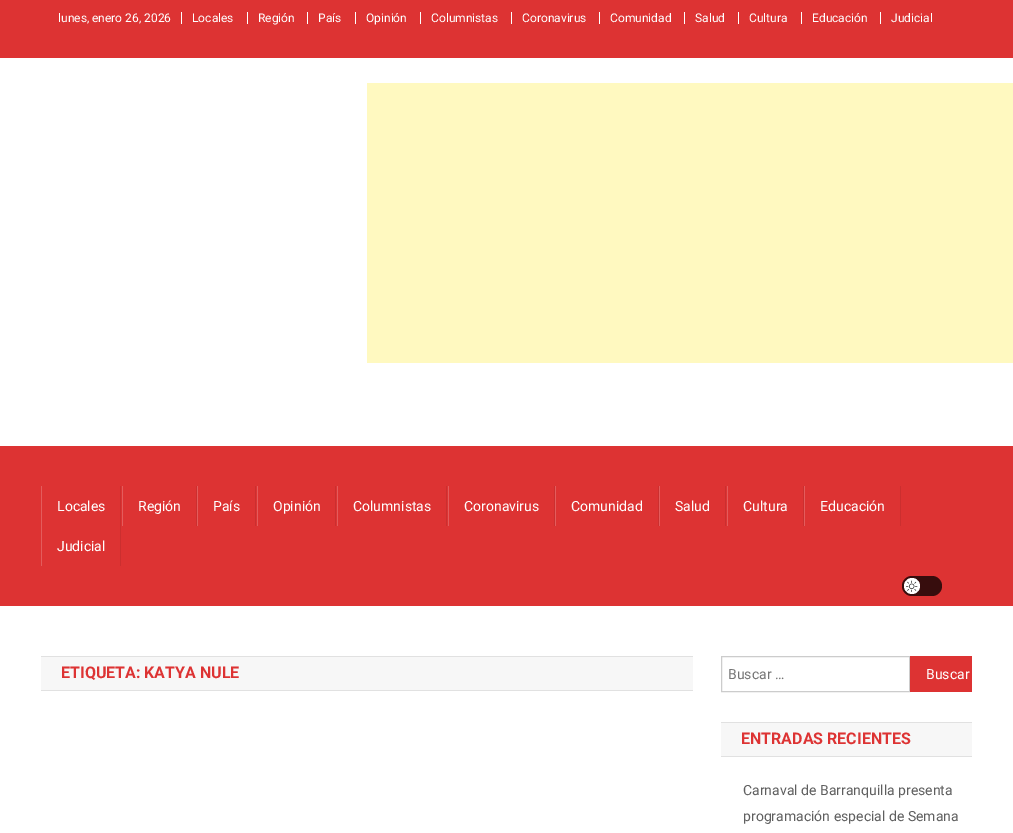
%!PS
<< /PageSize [1013 833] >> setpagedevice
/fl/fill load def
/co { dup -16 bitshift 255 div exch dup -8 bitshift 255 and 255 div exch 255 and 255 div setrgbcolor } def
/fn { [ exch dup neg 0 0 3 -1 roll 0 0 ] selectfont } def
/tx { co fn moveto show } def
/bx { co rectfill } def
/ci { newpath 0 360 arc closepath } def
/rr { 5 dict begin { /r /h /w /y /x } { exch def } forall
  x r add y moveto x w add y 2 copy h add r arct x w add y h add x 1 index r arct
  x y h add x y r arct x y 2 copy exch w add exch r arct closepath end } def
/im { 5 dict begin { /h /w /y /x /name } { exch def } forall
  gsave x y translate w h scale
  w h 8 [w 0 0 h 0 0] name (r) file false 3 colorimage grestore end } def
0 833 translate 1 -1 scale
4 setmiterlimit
0 0 1013 833 16#FFFFFF bx
0 0 1013 58 16#DD3333 bx
181 12 1 12 16#FFFFFF bx
247 12 1 12 16#FFFFFF bx
307 12 1 12 16#FFFFFF bx
355 12 1 12 16#FFFFFF bx
420 12 1 12 16#FFFFFF bx
511 12 1 12 16#FFFFFF bx
599 12 1 12 16#FFFFFF bx
684 12 1 12 16#FFFFFF bx
738 12 1 12 16#FFFFFF bx
801 12 1 12 16#FFFFFF bx
880 12 1 12 16#FFFFFF bx
367 83 646 280 16#FFF9C0 bx
0 446 1013 160 16#DD3333 bx
120 486 1 80 16#CB2F2F bx
41 486 1 80 16#E45C5C bx
196 486 1 40 16#CB2F2F bx
122 486 1 40 16#E45C5C bx
255 486 1 40 16#CB2F2F bx
197 486 1 40 16#E45C5C bx
335 486 1 40 16#CB2F2F bx
257 486 1 40 16#E45C5C bx
446 486 1 40 16#CB2F2F bx
337 486 1 40 16#E45C5C bx
554 486 1 40 16#CB2F2F bx
448 486 1 40 16#E45C5C bx
658 486 1 40 16#CB2F2F bx
555 486 1 40 16#E45C5C bx
725 486 1 40 16#CB2F2F bx
659 486 1 40 16#E45C5C bx
803 486 1 40 16#CB2F2F bx
727 486 1 40 16#E45C5C bx
900 486 1 40 16#CB2F2F bx
804 486 1 40 16#E45C5C bx
16#370D0D co
902 576 40 20 10 rr fl
16#FFFFFF co
912 586 8 ci fl
(media/1.raw) 906 580 12 12 im
41 657 652 33 16#F7F7F7 bx
41 656 652 1 16#E1E1E1 bx
41 690 652 1 16#E1E1E1 bx
16#CCCCCC co
721.5 656.5 188 35 rectstroke
910 656 62 36 16#DD3333 bx
721 723 251 33 16#F7F7F7 bx
721 722 251 1 16#E1E1E1 bx
721 756 251 1 16#E1E1E1 bx
(lunes, enero 26, 2026) 58 22 /Roboto-Regular 12 16#FFFFFF tx
(Locales) 192 22 /Roboto-Regular 12 16#FFFFFF tx
(Región) 258 22 /Roboto-Regular 12 16#FFFFFF tx
(País) 318 22 /Roboto-Regular 12 16#FFFFFF tx
(Opinión) 366 22 /Roboto-Regular 12 16#FFFFFF tx
(Columnistas) 431 22 /Roboto-Regular 12 16#FFFFFF tx
(Coronavirus) 522 22 /Roboto-Regular 12 16#FFFFFF tx
(Comunidad) 610 22 /Roboto-Regular 12 16#FFFFFF tx
(Salud) 695 22 /Roboto-Regular 12 16#FFFFFF tx
(Cultura) 749 22 /Roboto-Regular 12 16#FFFFFF tx
(Educación) 812 22 /Roboto-Regular 12 16#FFFFFF tx
(Judicial) 891 22 /Roboto-Regular 12 16#FFFFFF tx
(Locales) 57 511 /Roboto-Regular 14 16#FFFFFF tx
(Región) 138 511 /Roboto-Regular 14 16#FFFFFF tx
(País) 213 511 /Roboto-Regular 14 16#FFFFFF tx
(Opinión) 273 511 /Roboto-Regular 14 16#FFFFFF tx
(Columnistas) 353 511 /Roboto-Regular 14 16#FFFFFF tx
(Coronavirus) 464 511 /Roboto-Regular 14 16#FFFFFF tx
(Comunidad) 571 511 /Roboto-Regular 14 16#FFFFFF tx
(Salud) 675 511 /Roboto-Regular 14 16#FFFFFF tx
(Cultura) 743 511 /Roboto-Regular 14 16#FFFFFF tx
(Educación) 820 511 /Roboto-Regular 14 16#FFFFFF tx
(Judicial) 57 551 /Roboto-Regular 14 16#FFFFFF tx
(ETIQUETA: KATYA NULE) 61 678 /Roboto-Bold 16 16#DD3333 tx
(Buscar …) 728 679 /Roboto-Regular 14 16#757575 tx
(Buscar) 926 679 /Roboto-Regular 14 16#FFFFFF tx
(ENTRADAS RECIENTES) 741 744 /Roboto-Bold 16 16#DD3333 tx
(Carnaval de Barranquilla presenta) 743 795 /Roboto-Regular 14 16#5F5F5F tx
(programación especial de Semana) 743 821 /Roboto-Regular 14 16#5F5F5F tx
showpage
